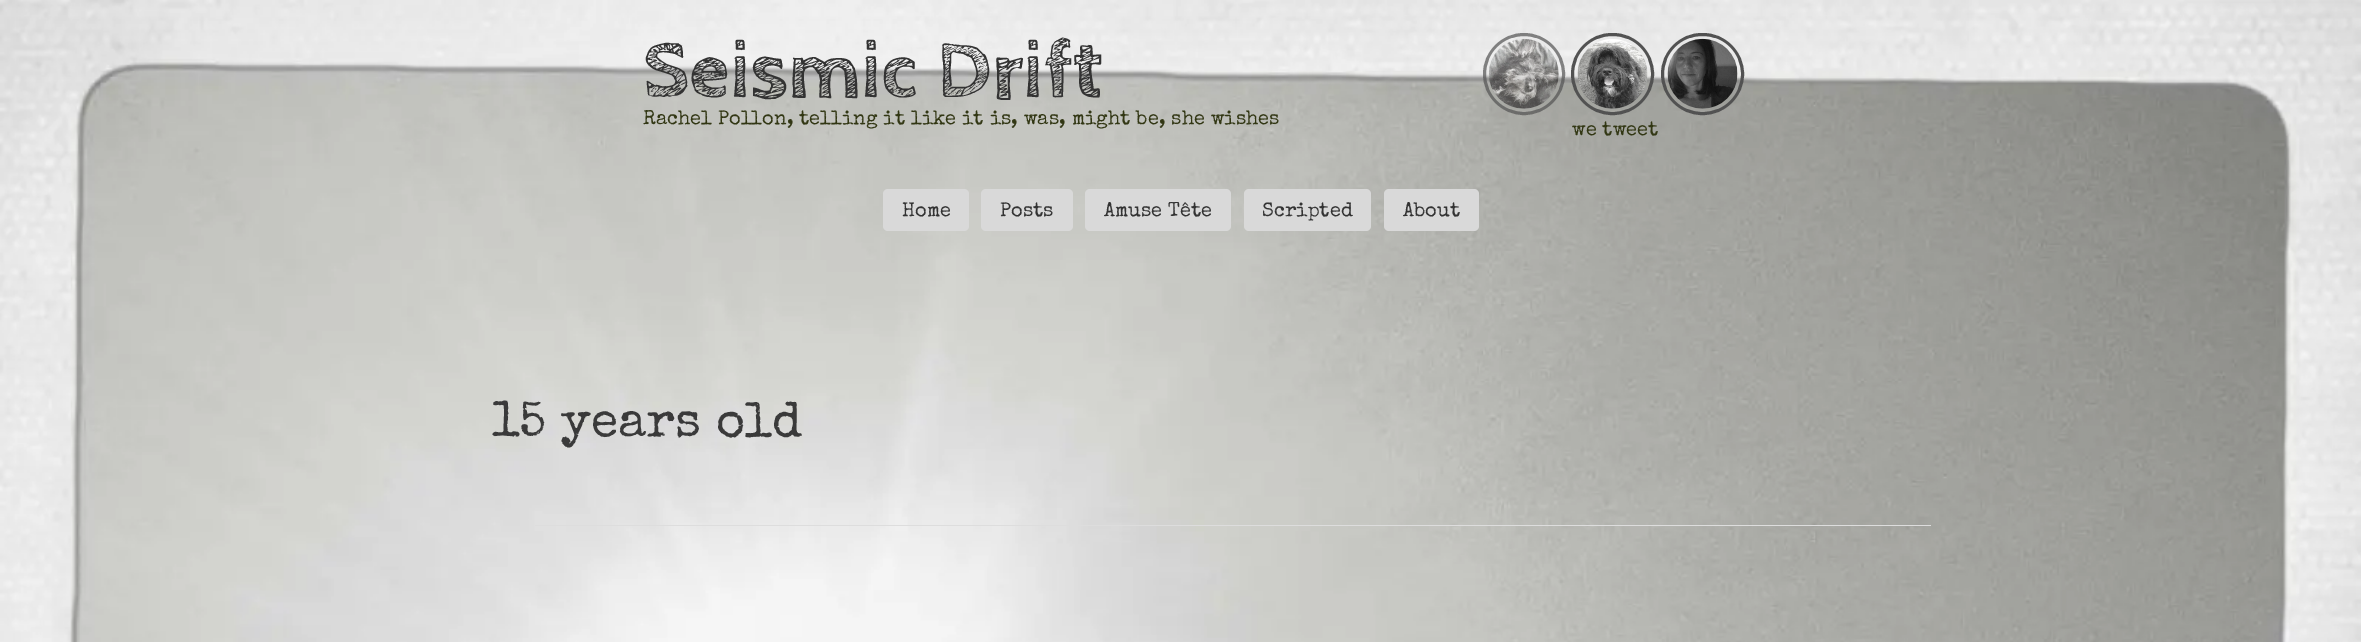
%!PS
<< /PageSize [2361 642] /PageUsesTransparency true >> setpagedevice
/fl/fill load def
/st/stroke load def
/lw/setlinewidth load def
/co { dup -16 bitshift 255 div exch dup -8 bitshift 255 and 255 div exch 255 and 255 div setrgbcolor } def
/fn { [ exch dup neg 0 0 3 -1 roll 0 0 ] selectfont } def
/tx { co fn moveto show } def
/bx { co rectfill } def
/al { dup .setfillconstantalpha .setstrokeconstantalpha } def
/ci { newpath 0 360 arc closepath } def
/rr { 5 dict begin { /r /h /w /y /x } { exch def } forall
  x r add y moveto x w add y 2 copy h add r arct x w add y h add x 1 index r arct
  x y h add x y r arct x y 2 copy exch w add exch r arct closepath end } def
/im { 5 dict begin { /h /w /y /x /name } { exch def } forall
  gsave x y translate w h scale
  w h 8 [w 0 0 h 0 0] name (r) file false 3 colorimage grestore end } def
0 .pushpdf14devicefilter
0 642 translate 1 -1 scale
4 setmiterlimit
0 0 2361 642 16#FFFFFF bx
(media/1.raw) 0 0 2361 642 im
0.7 al
16#525252 co
3 lw
1524 74 39.5 ci st
1 al
(media/2.raw) 1489 38 70 71 im
1572.5 34.5 80 79 39.5 rr st
(media/3.raw) 1577 39 71 70 im
1662.5 34.5 80 79 39.5 rr st
(media/4.raw) 1667 38 71 71 im
16#D9D9D9 co
883 189 86 42 5 rr fl
981 189 92 42 5 rr fl
1085 189 146 42 5 rr fl
1244 189 127 42 5 rr fl
1384 189 95 42 5 rr fl
535 525 1396 1 16#DDDDDD bx
(Seismic Drift) 643 96 /CabinSketch-Bold 82.5 16#333333 tx
(Rachel Pollon, telling it like it is, was, might be, she wishes) 643 124 /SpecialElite-Regular 20 16#323714 tx
(we tweet) 1572 135 /SpecialElite-Regular 20 16#323714 tx
(Home) 902 216 /SpecialElite-Regular 20 16#333333 tx
(Posts) 1000 216 /SpecialElite-Regular 20 16#333333 tx
(Amuse Tête) 1104 216 /SpecialElite-Regular 20 16#333333 tx
(Scripted) 1262 216 /SpecialElite-Regular 20 16#333333 tx
(About) 1403 216 /SpecialElite-Regular 20 16#333333 tx
(15 years old) 491 436 /SpecialElite-Regular 50 16#3A3A3A tx
.poppdf14devicefilter showpage
